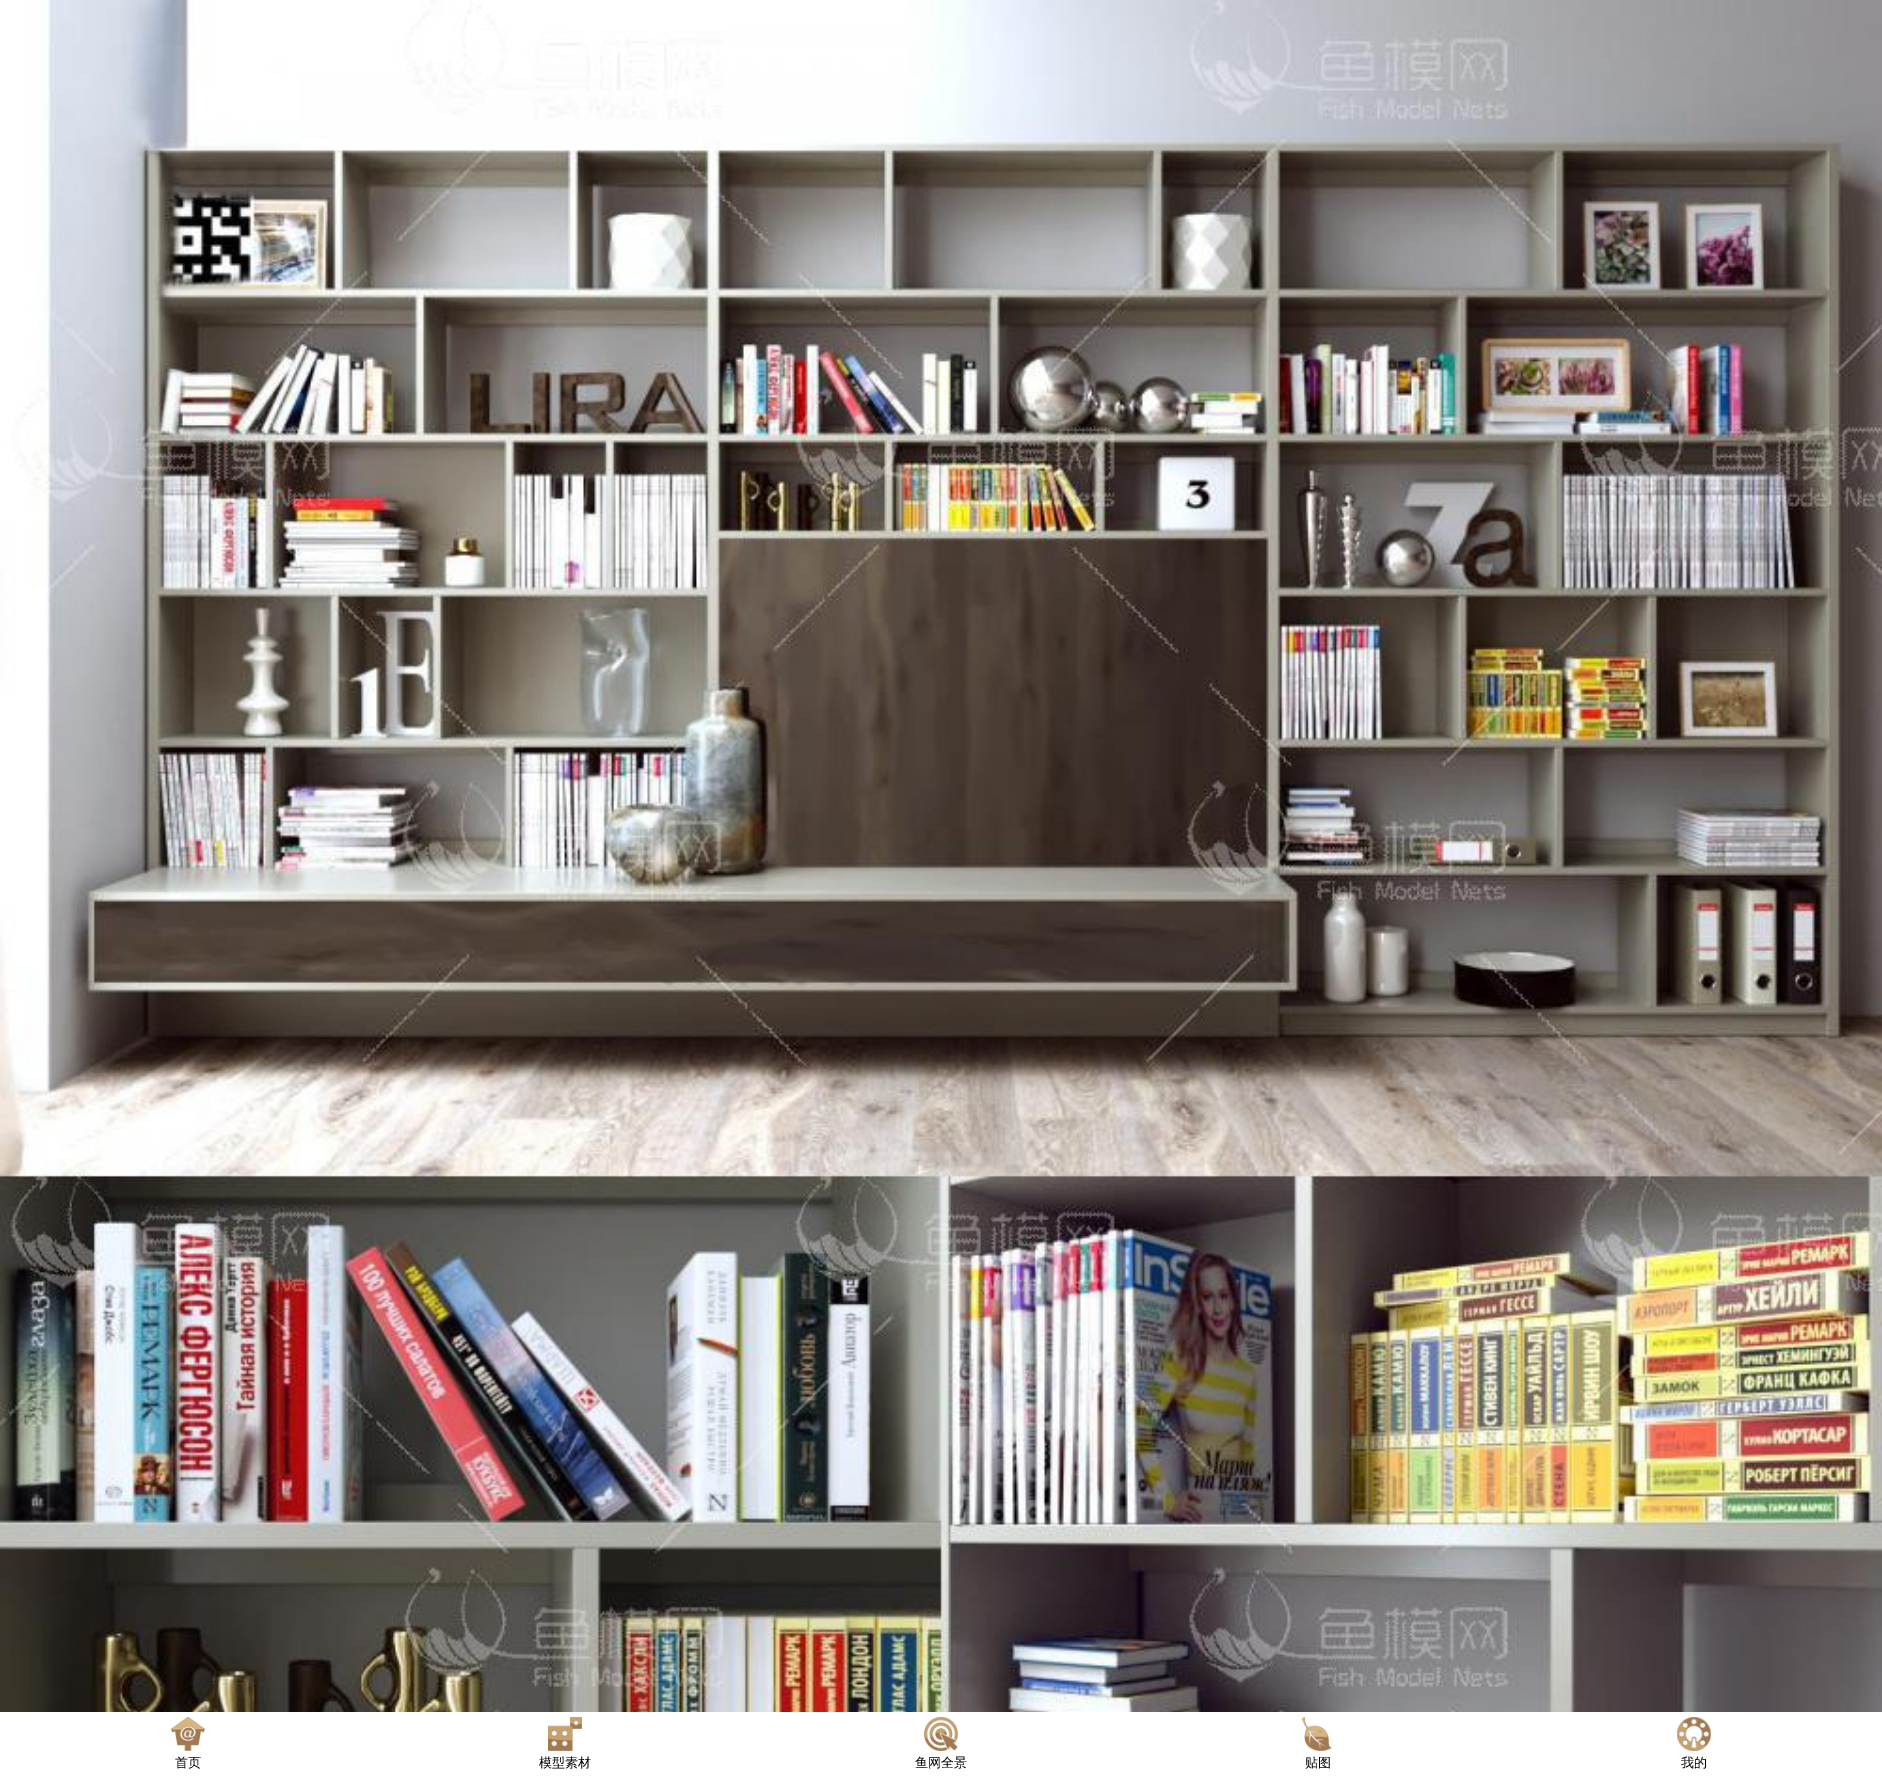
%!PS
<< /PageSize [1882 1782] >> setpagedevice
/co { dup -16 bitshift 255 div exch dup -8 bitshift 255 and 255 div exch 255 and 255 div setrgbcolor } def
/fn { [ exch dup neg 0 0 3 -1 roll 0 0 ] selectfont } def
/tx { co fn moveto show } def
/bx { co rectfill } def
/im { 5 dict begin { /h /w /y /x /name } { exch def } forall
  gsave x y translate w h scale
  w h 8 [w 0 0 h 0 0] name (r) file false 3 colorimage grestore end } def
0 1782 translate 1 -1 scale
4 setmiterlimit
0 0 1882 1782 16#FFFFFF bx
(media/1.raw) 0 0 1882 1712 im
(media/2.raw) 171 1717 34 34 im
(media/3.raw) 548 1717 34 34 im
(media/4.raw) 924 1717 34 34 im
(media/5.raw) 1301 1717 31 34 im
(media/6.raw) 1676 1717 35 34 im
(首页) 175 1767 /WenQuanYiZenHei-Medium 13 16#000000 tx
(模型素材) 539 1767 /WenQuanYiZenHei-Medium 13 16#000000 tx
(鱼网全景) 915 1767 /WenQuanYiZenHei-Medium 13 16#000000 tx
(贴图) 1305 1767 /WenQuanYiZenHei-Medium 13 16#000000 tx
(我的) 1681 1767 /WenQuanYiZenHei-Medium 13 16#000000 tx
showpage
